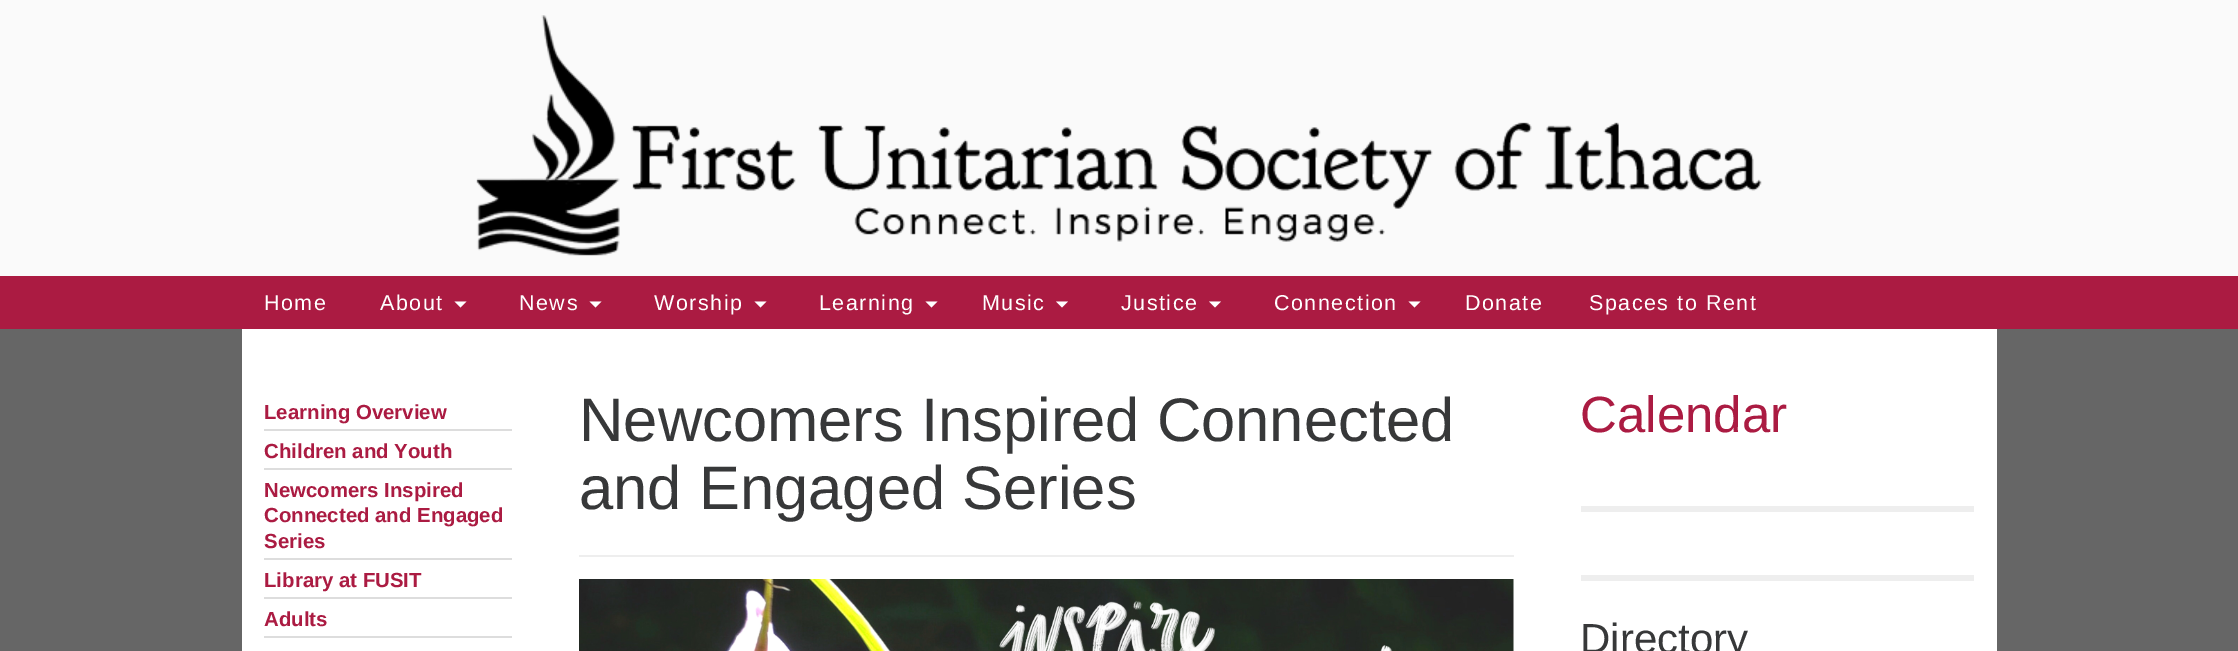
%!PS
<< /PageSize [2238 651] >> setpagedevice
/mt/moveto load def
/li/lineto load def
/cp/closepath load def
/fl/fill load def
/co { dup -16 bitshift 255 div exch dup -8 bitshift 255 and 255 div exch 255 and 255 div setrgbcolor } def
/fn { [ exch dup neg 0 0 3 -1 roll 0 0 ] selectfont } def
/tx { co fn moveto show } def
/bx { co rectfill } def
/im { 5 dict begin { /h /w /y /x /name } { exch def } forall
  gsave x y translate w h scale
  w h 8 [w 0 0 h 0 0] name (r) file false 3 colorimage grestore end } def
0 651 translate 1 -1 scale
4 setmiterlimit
0 0 2238 651 16#666666 bx
0 0 2238 276 16#FAFAFA bx
(media/1.raw) 476 15 1286 241 im
0 276 2238 53 16#AB1B42 bx
16#FFFFFF co
454.5 301.5 mt 466.5 301.5 li 460.5 307.5 li cp fl
589.5 301.5 mt 601.5 301.5 li 595.5 307.5 li cp fl
754.5 301.5 mt 766.5 301.5 li 760.5 307.5 li cp fl
925.5 301.5 mt 937.5 301.5 li 931.5 307.5 li cp fl
1056 301.5 mt 1068 301.5 li 1062 307.5 li cp fl
1209 301.5 mt 1221 301.5 li 1215 307.5 li cp fl
1408.5 301.5 mt 1420.5 301.5 li 1414.5 307.5 li cp fl
242 329 1755 322 16#FFFFFF bx
264 429 248 2 16#DDDDDD bx
264 468 248 2 16#DDDDDD bx
264 558 248 2 16#DDDDDD bx
264 597 248 2 16#DDDDDD bx
264 636 248 2 16#DDDDDD bx
579 555 935 2 16#EEEEEE bx
(media/2.raw) 579 579 935 72 im
1581 506 393 6 16#EEEEEE bx
1581 575 393 6 16#EEEEEE bx
/LiberationSans-Regular 21.5 fn
16#FFFFFF co
264 310 mt 1.5 0 (Home) ashow
380 310 mt 1.5 0 (About) ashow
519 310 mt 1.5 0 (News) ashow
654 310 mt 1.5 0 (Worship) ashow
819 310 mt 1.5 0 (Learning) ashow
982 310 mt 1.5 0 (Music) ashow
1121 310 mt 1.5 0 (Justice) ashow
1274 310 mt 1.5 0 (Connection) ashow
1465 310 mt 1.5 0 (Donate) ashow
1589 310 mt 1.5 0 (Spaces to Rent) ashow
(Learning Overview) 264 419 /LiberationSans-Bold 20.4 16#AB1B42 tx
(Children and Youth) 264 458 /LiberationSans-Bold 20.4 16#AB1B42 tx
(Newcomers Inspired) 264 497 /LiberationSans-Bold 20.4 16#AB1B42 tx
(Connected and Engaged) 264 522 /LiberationSans-Bold 20.4 16#AB1B42 tx
(Series) 264 548 /LiberationSans-Bold 20.4 16#AB1B42 tx
(Library at FUSIT) 264 587 /LiberationSans-Bold 20.4 16#AB1B42 tx
(Adults) 264 626 /LiberationSans-Bold 20.4 16#AB1B42 tx
(Newcomers Inspired Connected) 579 441 /LiberationSans-Regular 61.5 16#373839 tx
(and Engaged Series) 579 509 /LiberationSans-Regular 61.5 16#373839 tx
(Calendar) 1580 432 /LiberationSans-Regular 51 16#AB1B42 tx
(Directory) 1580 653 /LiberationSans-Regular 42 16#373839 tx
showpage
